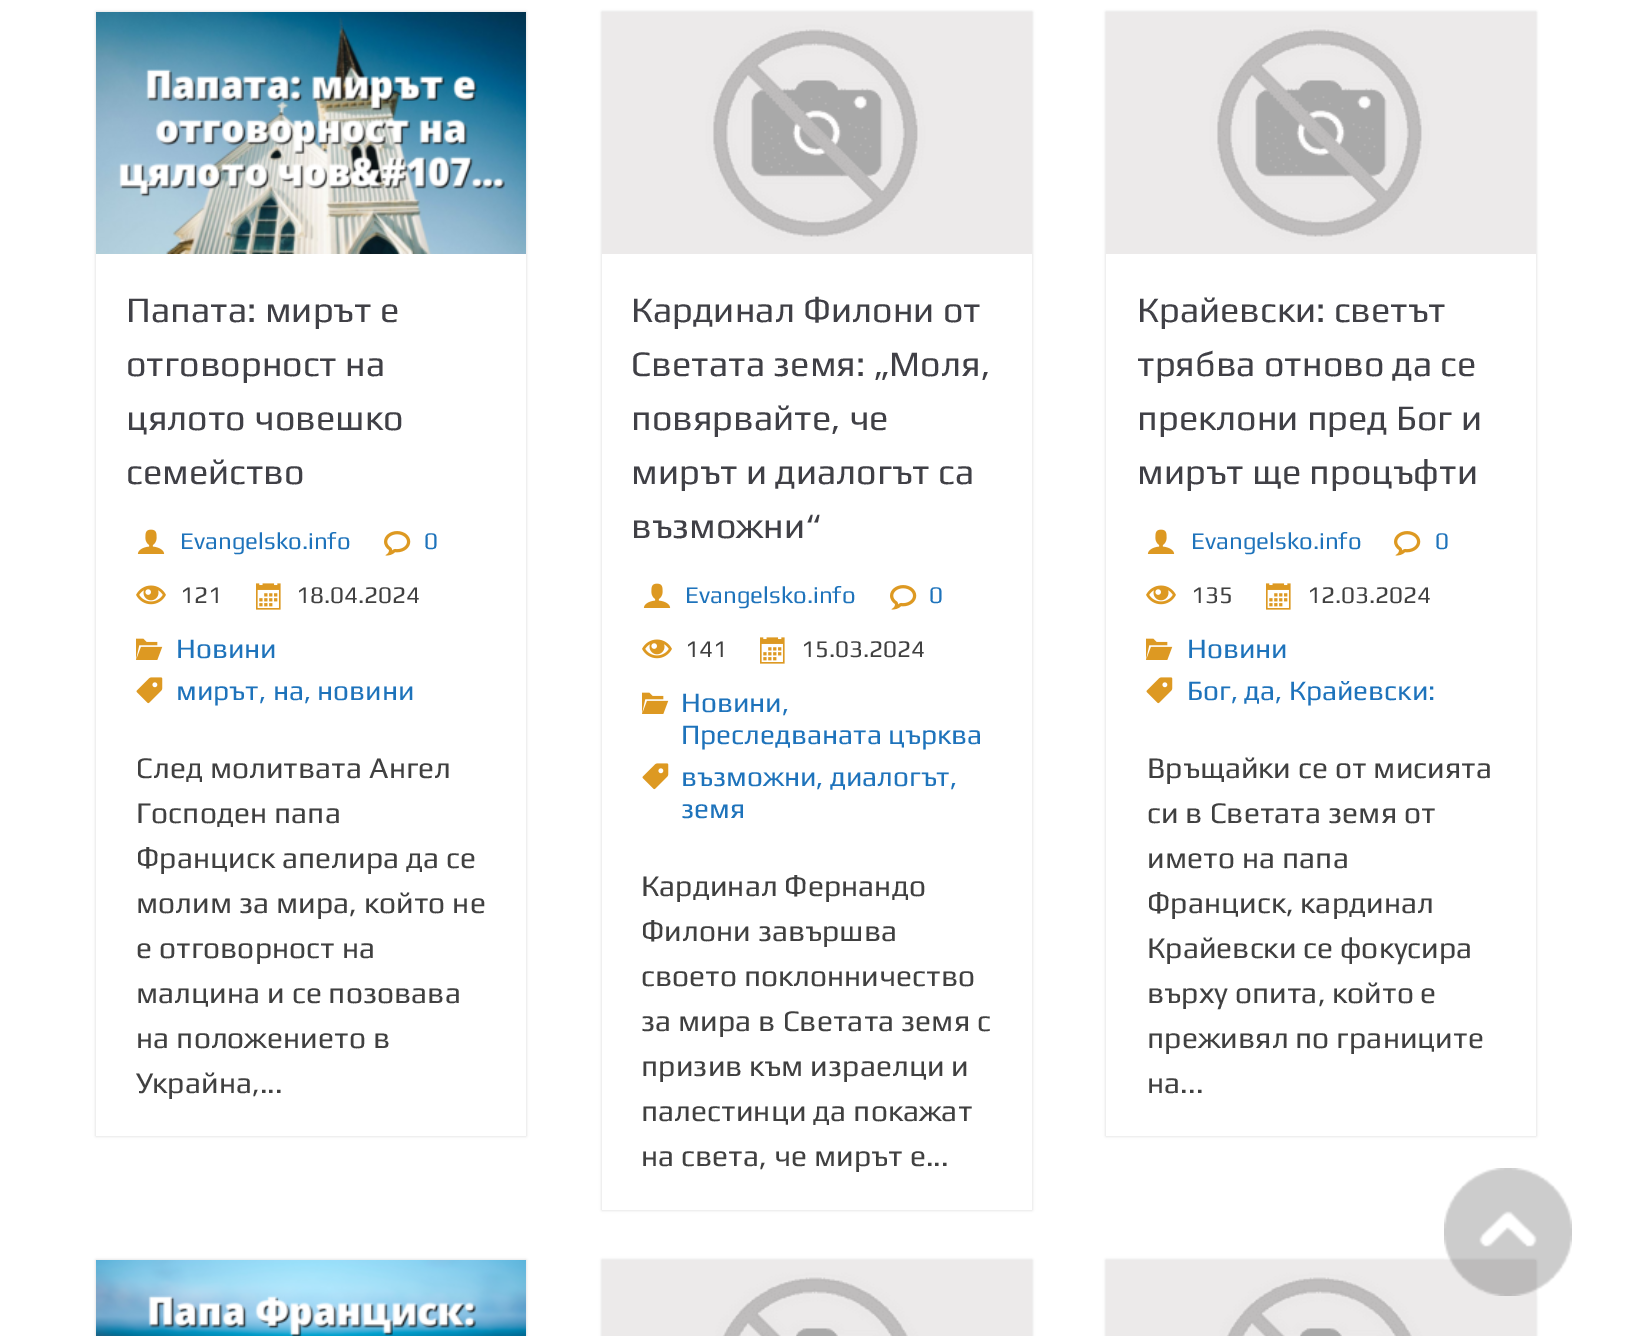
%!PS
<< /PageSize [1632 1336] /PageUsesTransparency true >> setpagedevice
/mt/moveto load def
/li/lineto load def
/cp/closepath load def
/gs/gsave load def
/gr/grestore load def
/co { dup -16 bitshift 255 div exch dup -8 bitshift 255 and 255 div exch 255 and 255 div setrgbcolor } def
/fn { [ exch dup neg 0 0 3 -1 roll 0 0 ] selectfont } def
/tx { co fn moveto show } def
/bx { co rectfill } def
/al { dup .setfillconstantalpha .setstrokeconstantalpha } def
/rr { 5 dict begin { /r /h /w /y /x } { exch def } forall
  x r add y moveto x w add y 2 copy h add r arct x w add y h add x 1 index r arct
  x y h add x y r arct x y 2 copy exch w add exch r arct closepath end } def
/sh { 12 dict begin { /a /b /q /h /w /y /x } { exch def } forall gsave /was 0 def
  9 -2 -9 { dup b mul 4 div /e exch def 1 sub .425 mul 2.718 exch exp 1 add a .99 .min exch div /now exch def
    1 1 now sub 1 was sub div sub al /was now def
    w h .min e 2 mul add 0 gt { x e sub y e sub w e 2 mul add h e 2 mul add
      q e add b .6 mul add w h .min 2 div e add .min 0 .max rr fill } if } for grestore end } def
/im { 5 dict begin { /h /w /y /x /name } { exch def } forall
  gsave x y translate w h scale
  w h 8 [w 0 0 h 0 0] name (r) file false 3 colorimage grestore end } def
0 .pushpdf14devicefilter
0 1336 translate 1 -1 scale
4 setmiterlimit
0 0 1632 1336 16#FFFFFF bx
gs
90 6 mt 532 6 li 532 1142 li 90 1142 li cp 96 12 mt 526 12 li 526 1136 li 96 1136 li cp eoclip newpath
16#000000 co
96 12 430 1124 0 1.5 .15 sh
gr
(media/1.raw) 96 12 430 242 im
(media/2.raw) 137 529 28 25 im
(media/3.raw) 384 531 27 25 im
(media/4.raw) 136 585 30 20 im
(media/5.raw) 256 583 25 27 im
(media/6.raw) 136 638 27 22 im
(media/7.raw) 136 677 27 27 im
gs
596 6 mt 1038 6 li 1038 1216 li 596 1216 li cp 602 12 mt 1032 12 li 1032 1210 li 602 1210 li cp eoclip newpath
16#000000 co
602 12 430 1198 0 1.5 .15 sh
gr
(media/8.raw) 602 12 430 242 im
(media/2.raw) 643 583 28 25 im
(media/3.raw) 890 585 27 25 im
(media/4.raw) 642 639 30 20 im
(media/5.raw) 760 637 25 27 im
(media/6.raw) 642 692 27 22 im
(media/7.raw) 642 763 27 27 im
gs
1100 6 mt 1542 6 li 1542 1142 li 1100 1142 li cp 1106 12 mt 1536 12 li 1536 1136 li 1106 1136 li cp eoclip newpath
16#000000 co
1106 12 430 1124 0 1.5 .15 sh
gr
(media/8.raw) 1106 12 430 242 im
(media/2.raw) 1147 529 28 25 im
(media/3.raw) 1394 531 27 25 im
(media/4.raw) 1146 585 30 20 im
(media/5.raw) 1266 583 25 27 im
(media/6.raw) 1146 638 27 22 im
(media/7.raw) 1146 677 27 27 im
16#000000 co
96 1260 430 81 0 1.5 .15 sh
(media/9.raw) 96 1260 430 76 im
602 1260 430 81 0 1.5 .15 sh
(media/10.raw) 602 1260 430 76 im
1106 1260 430 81 0 1.5 .15 sh
(media/10.raw) 1106 1260 430 76 im
(media/11.raw) 1444 1168 128 128 im
(Папата: мирът е) 126 322 /Play-Regular 36 16#404046 tx
(отговорност на) 126 376 /Play-Regular 36 16#404046 tx
(цялото човешко) 126 430 /Play-Regular 36 16#404046 tx
(семейство) 126 484 /Play-Regular 36 16#404046 tx
(Evangelsko.info) 180 549 /Play-Regular 24 16#1E73BB tx
(0) 424 549 /Play-Regular 24 16#1E73BB tx
(121) 180 603 /Play-Regular 24 16#404040 tx
(18.04.2024) 296 603 /Play-Regular 24 16#404040 tx
(Новини) 176 658 /Play-Regular 28 16#1E73BB tx
(мирът, на, новини) 176 700 /Play-Regular 28 16#1E73BB tx
(След молитвата Ангел) 136 778 /Play-Regular 30 16#404040 tx
(Господен папа) 136 823 /Play-Regular 30 16#404040 tx
(Франциск апелира да се) 136 868 /Play-Regular 30 16#404040 tx
(молим за мира, който не) 136 913 /Play-Regular 30 16#404040 tx
(е отговорност на) 136 958 /Play-Regular 30 16#404040 tx
(малцина и се позовава) 136 1003 /Play-Regular 30 16#404040 tx
(на положението в) 136 1048 /Play-Regular 30 16#404040 tx
(Украйна,...) 136 1093 /Play-Regular 30 16#404040 tx
(Кардинал Филони от) 631 322 /Play-Regular 36 16#404046 tx
(Светата земя: „Моля,) 631 376 /Play-Regular 36 16#404046 tx
(повярвайте, че) 631 430 /Play-Regular 36 16#404046 tx
(мирът и диалогът са) 631 484 /Play-Regular 36 16#404046 tx
(възможни“) 631 538 /Play-Regular 36 16#404046 tx
(Evangelsko.info) 685 603 /Play-Regular 24 16#1E73BB tx
(0) 929 603 /Play-Regular 24 16#1E73BB tx
(141) 685 657 /Play-Regular 24 16#404040 tx
(15.03.2024) 801 657 /Play-Regular 24 16#404040 tx
(Новини,) 681 712 /Play-Regular 28 16#1E73BB tx
(Преследваната църква) 681 744 /Play-Regular 28 16#1E73BB tx
(възможни, диалогът,) 681 786 /Play-Regular 28 16#1E73BB tx
(земя) 681 818 /Play-Regular 28 16#1E73BB tx
(Кардинал Фернандо) 641 896 /Play-Regular 30 16#404040 tx
(Филони завършва) 641 941 /Play-Regular 30 16#404040 tx
(своето поклонничество) 641 986 /Play-Regular 30 16#404040 tx
(за мира в Светата земя с) 641 1031 /Play-Regular 30 16#404040 tx
(призив към израелци и) 641 1076 /Play-Regular 30 16#404040 tx
(палестинци да покажат) 641 1121 /Play-Regular 30 16#404040 tx
(на света, че мирът е...) 641 1166 /Play-Regular 30 16#404040 tx
(Крайевски: светът) 1137 322 /Play-Regular 36 16#404046 tx
(трябва отново да се) 1137 376 /Play-Regular 36 16#404046 tx
(преклони пред Бог и) 1137 430 /Play-Regular 36 16#404046 tx
(мирът ще процъфти) 1137 484 /Play-Regular 36 16#404046 tx
(Evangelsko.info) 1191 549 /Play-Regular 24 16#1E73BB tx
(0) 1435 549 /Play-Regular 24 16#1E73BB tx
(135) 1191 603 /Play-Regular 24 16#404040 tx
(12.03.2024) 1307 603 /Play-Regular 24 16#404040 tx
(Новини) 1187 658 /Play-Regular 28 16#1E73BB tx
(Бог, да, Крайевски:) 1187 700 /Play-Regular 28 16#1E73BB tx
(Връщайки се от мисията) 1147 778 /Play-Regular 30 16#404040 tx
(си в Светата земя от) 1147 823 /Play-Regular 30 16#404040 tx
(името на папа) 1147 868 /Play-Regular 30 16#404040 tx
(Франциск, кардинал) 1147 913 /Play-Regular 30 16#404040 tx
(Крайевски се фокусира) 1147 958 /Play-Regular 30 16#404040 tx
(върху опита, който е) 1147 1003 /Play-Regular 30 16#404040 tx
(преживял по границите) 1147 1048 /Play-Regular 30 16#404040 tx
(на...) 1147 1093 /Play-Regular 30 16#404040 tx
.poppdf14devicefilter showpage
